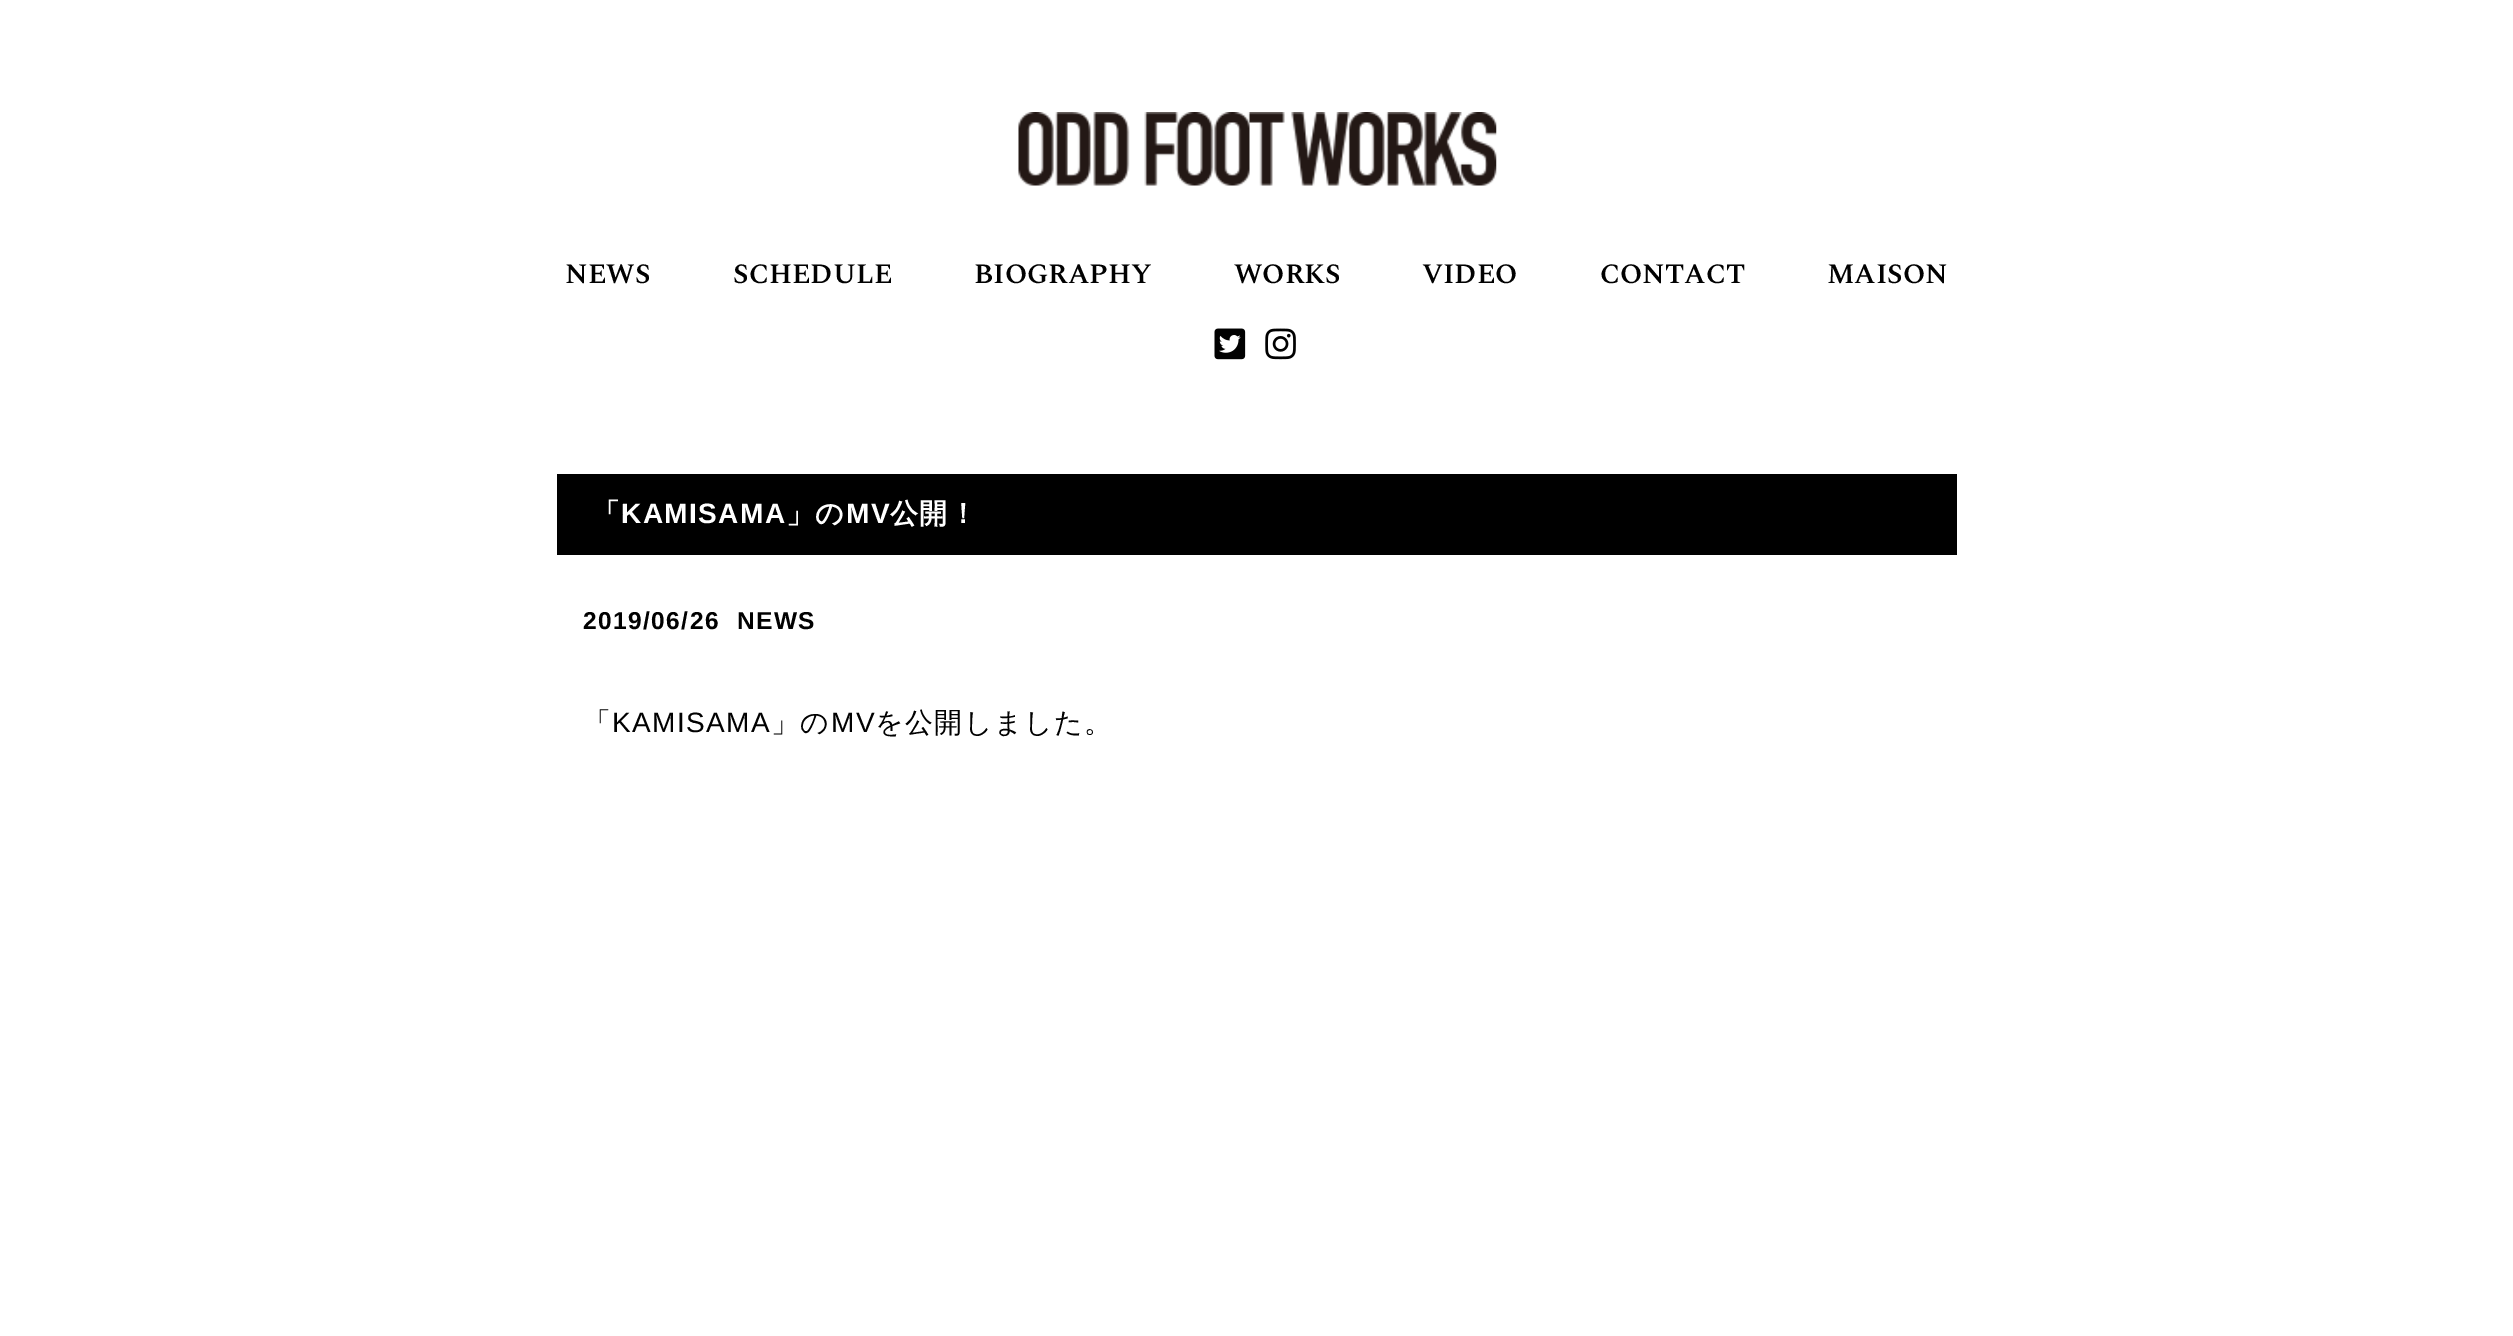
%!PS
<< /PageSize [2513 1336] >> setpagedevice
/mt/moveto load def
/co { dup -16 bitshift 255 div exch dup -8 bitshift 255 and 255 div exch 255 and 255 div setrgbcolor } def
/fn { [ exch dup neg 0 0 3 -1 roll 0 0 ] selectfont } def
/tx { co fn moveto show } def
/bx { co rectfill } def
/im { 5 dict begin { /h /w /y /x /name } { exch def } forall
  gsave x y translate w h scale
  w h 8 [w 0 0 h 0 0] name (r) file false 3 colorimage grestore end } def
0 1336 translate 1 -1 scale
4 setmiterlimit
0 0 2513 1336 16#FFFFFF bx
(media/1.raw) 1018 112 479 74 im
(media/2.raw) 1214 328 32 32 im
(media/3.raw) 1265 328 31 32 im
557 474 1400 81 16#000000 bx
(NEWS) 565 283 /Spectral-SemiBold 28 16#010101 tx
(SCHEDULE) 733 283 /Spectral-SemiBold 28 16#010101 tx
(BIOGRAPHY) 974 283 /Spectral-SemiBold 28 16#010101 tx
(WORKS) 1234 283 /Spectral-SemiBold 28 16#010101 tx
(VIDEO) 1422 283 /Spectral-SemiBold 28 16#010101 tx
(CONTACT) 1600 283 /Spectral-SemiBold 28 16#010101 tx
(MAISON) 1827 283 /Spectral-SemiBold 28 16#010101 tx
/WenQuanYiZenHei-Bold 28 fn
16#FFFFFF co
592 523 mt 1.4 0 (「) ashow
/LiberationSans-Bold 28 fn
621 523 mt 1.4 0 (KAMISAMA) ashow
/WenQuanYiZenHei-Bold 28 fn
786 523 mt 1.4 0 (」の) ashow
/LiberationSans-Bold 28 fn
846 523 mt 1.4 0 (MV) ashow
/WenQuanYiZenHei-Bold 28 fn
890 523 mt 1.4 0 (公開！) ashow
/LiberationSans-Bold 24.5 fn
16#010101 co
583 629 mt 1.4 0 (2019/06/26) ashow
737 629 mt 1.4 0 (NEWS) ashow
/WenQuanYiZenHei-Medium 28 fn
583 732 mt 1.4 0 (「) ashow
/LiberationSans-Regular 28 fn
612 732 mt 1.4 0 (KAMISAMA) ashow
/WenQuanYiZenHei-Medium 28 fn
771 732 mt 1.4 0 (」の) ashow
/LiberationSans-Regular 28 fn
831 732 mt 1.4 0 (MV) ashow
/WenQuanYiZenHei-Medium 28 fn
875 732 mt 1.4 0 (を公開しました。) ashow
showpage
